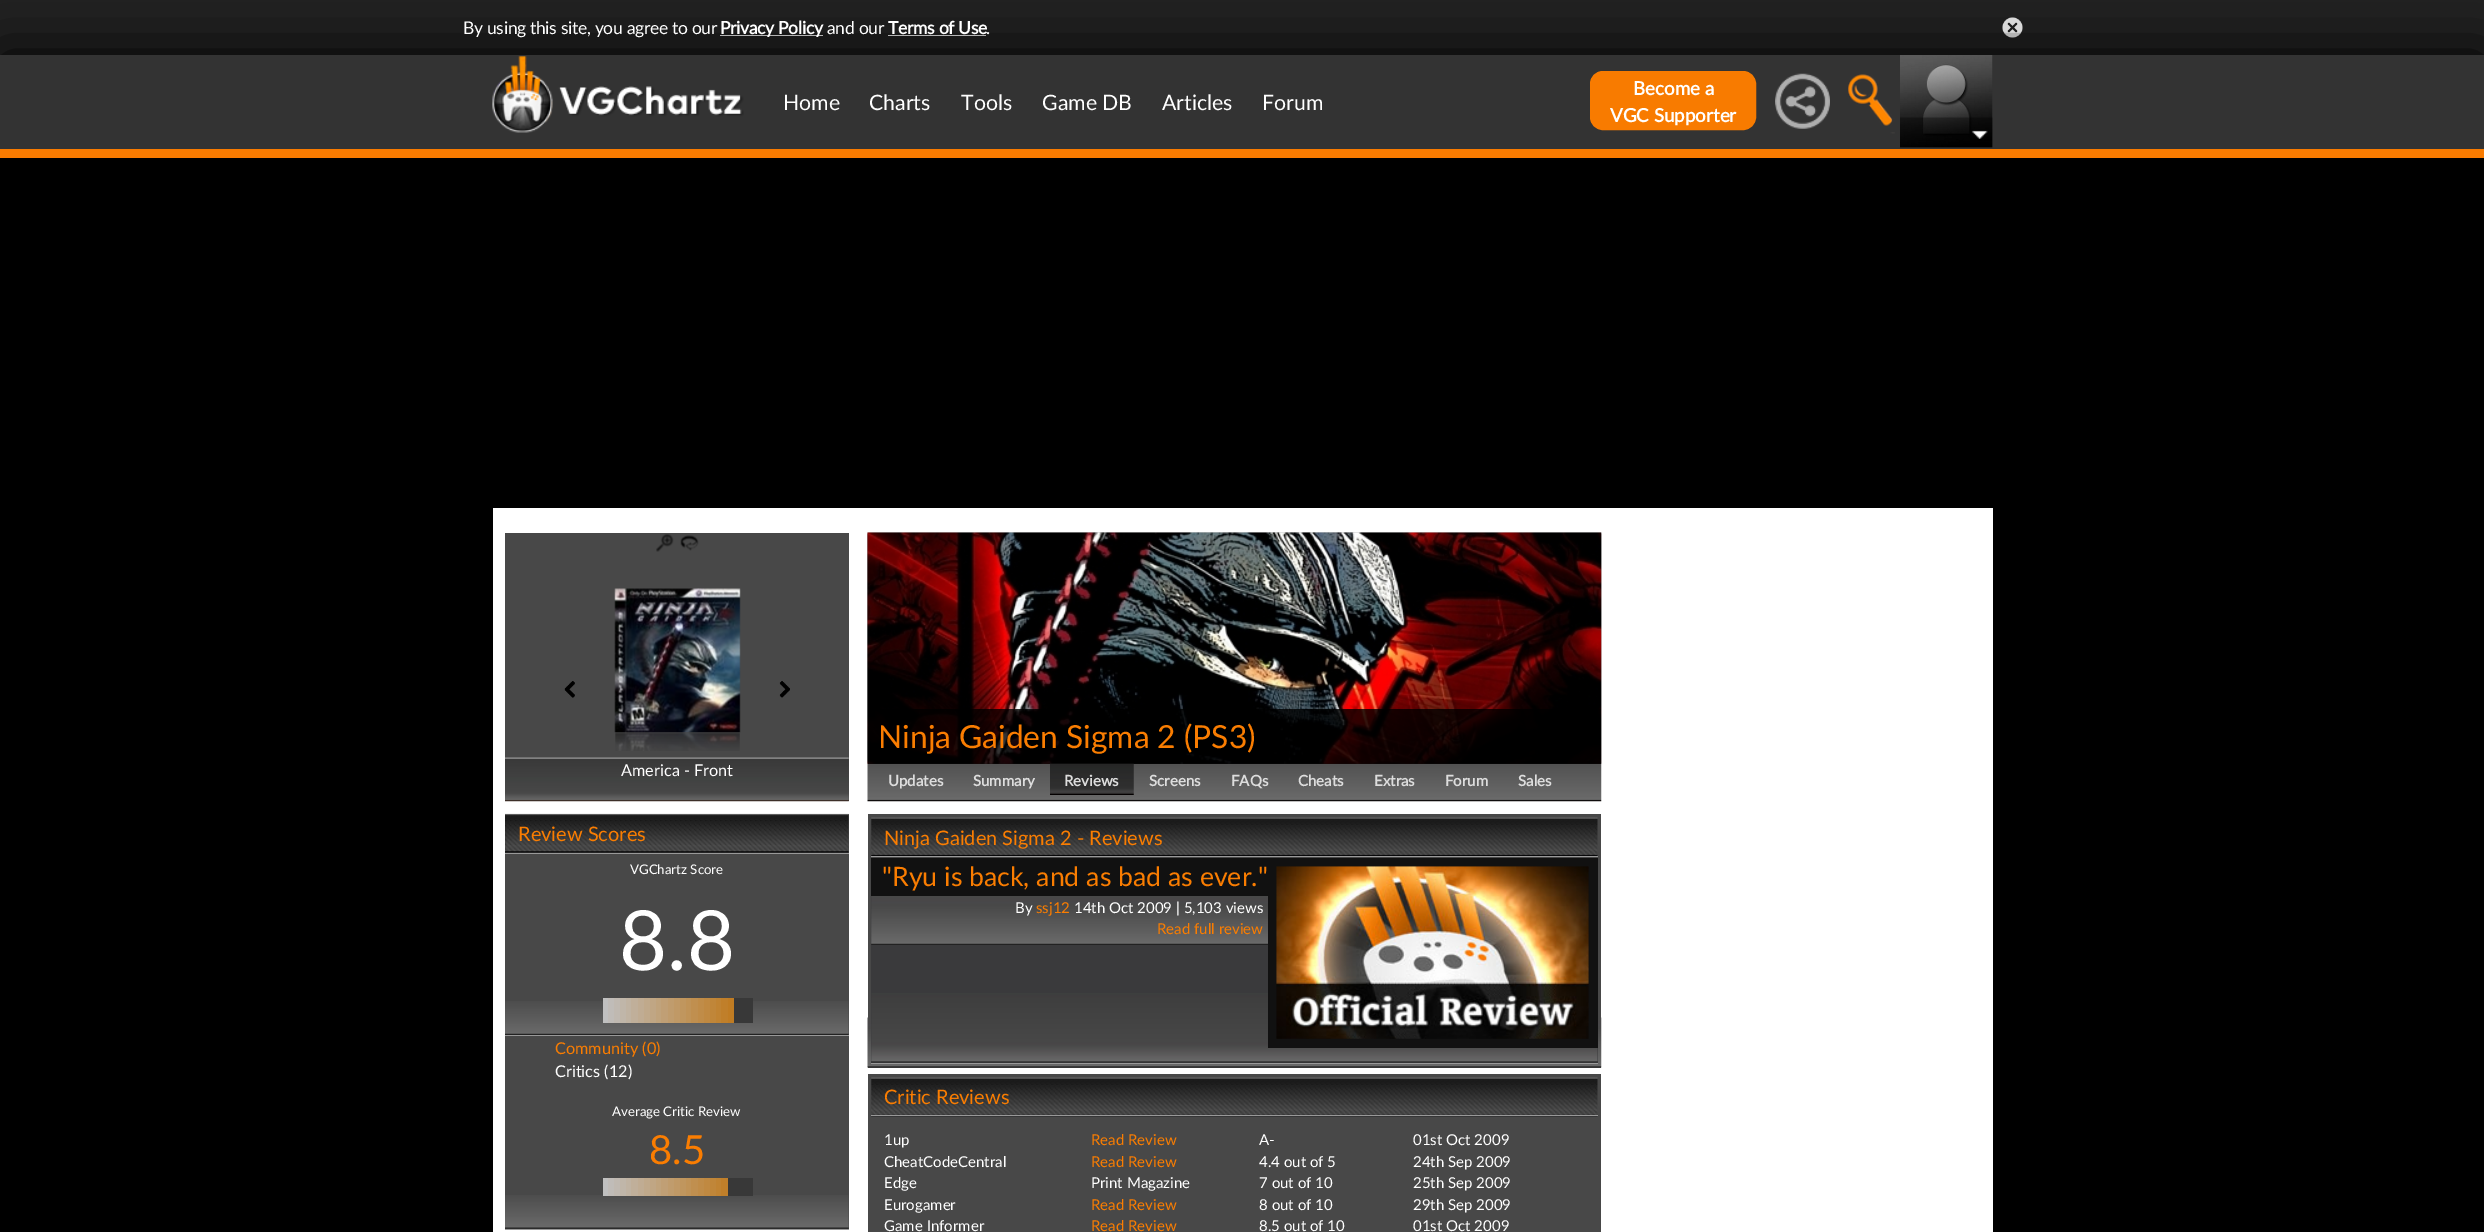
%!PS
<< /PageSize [2484 1232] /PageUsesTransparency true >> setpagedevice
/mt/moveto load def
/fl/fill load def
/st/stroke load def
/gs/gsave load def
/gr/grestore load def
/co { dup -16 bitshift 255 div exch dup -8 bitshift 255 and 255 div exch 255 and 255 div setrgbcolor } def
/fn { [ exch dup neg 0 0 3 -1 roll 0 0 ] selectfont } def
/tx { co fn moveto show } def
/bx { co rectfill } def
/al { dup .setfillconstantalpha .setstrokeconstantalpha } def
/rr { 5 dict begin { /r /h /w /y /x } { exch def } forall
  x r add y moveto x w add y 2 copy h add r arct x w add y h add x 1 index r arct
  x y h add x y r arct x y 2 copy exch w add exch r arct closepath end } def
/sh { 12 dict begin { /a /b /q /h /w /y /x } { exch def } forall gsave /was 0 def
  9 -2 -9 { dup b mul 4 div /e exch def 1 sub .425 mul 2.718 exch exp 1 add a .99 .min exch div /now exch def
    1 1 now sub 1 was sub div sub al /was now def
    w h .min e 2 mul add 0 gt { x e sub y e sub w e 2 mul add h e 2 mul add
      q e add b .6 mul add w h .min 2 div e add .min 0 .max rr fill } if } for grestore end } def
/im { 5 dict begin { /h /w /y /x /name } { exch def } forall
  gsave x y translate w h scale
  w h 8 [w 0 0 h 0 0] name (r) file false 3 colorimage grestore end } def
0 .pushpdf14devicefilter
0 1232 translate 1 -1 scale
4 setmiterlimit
0 0 2484 1232 16#000000 bx
0 0 2484 55 16#222222 bx
720 35 103 1 16#FFFFFF bx
888 35 98 1 16#FFFFFF bx
(media/1.raw) 2002 17 21 21 im
16#000000 co
0 56 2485 103 0 31 1 sh
0 55 2484 94 16#333333 bx
(media/2.raw) 492 56 252 77 im
16#F87B00 co
1590.5 71.5 165 58 12.5 rr gs fl gr
st
(media/3.raw) 1775 73 55 56 im
(media/4.raw) 1848 74 47 60 im
(media/5.raw) 1900 55 93 93 im
(media/6.raw) 1900 117 93 31 im
0 149 2484 9 16#F97B00 bx
493 508 1500 724 16#FFFFFF bx
505 533 344 268 16#484848 bx
(media/7.raw) 505 757 344 45 im
(media/8.raw) 564 681 11 17 im
(media/9.raw) 779 681 11 17 im
(media/10.raw) 656 534 18 18 im
(media/11.raw) 680 535 19 16 im
(media/12.raw) 614 588 127 145 im
(media/13.raw) 615 732 125 19 im
505 814 344 415 16#484848 bx
(media/14.raw) 505 813 344 40 im
505 853 344 1 16#999999 bx
(media/15.raw) 505 1001 344 34 im
505 1035 344 1 16#999999 bx
603 998 5 25 16#C0C0C0 bx
608 998 6 25 16#C0BCB8 bx
614 998 6 25 16#C0B9B1 bx
620 998 6 25 16#C0B6A9 bx
626 998 5 25 16#C0B3A2 bx
631 998 7 25 16#C0AF9A bx
638 998 6 25 16#C0AC93 bx
644 998 6 25 16#C0A98B bx
650 998 6 25 16#C0A684 bx
656 998 5 25 16#C0A37C bx
661 998 7 25 16#C09F75 bx
668 998 6 25 16#C09C6D bx
674 998 6 25 16#C09966 bx
680 998 6 25 16#C0965E bx
686 998 5 25 16#C09357 bx
691 998 7 25 16#C08F4F bx
698 998 6 25 16#C08C48 bx
704 998 6 25 16#C08941 bx
710 998 6 25 16#C08639 bx
716 998 5 25 16#C08332 bx
721 998 7 25 16#C07F2A bx
728 998 6 25 16#C07C23 bx
734 998 19 25 16#383838 bx
(media/16.raw) 505 1195 344 34 im
505 1229 344 1 16#999999 bx
603 1178 5 18 16#C0C0C0 bx
608 1178 6 18 16#C0BCB8 bx
614 1178 6 18 16#C0B9B1 bx
620 1178 6 18 16#C0B6A9 bx
626 1178 5 18 16#C0B3A2 bx
631 1178 7 18 16#C0AF9A bx
638 1178 6 18 16#C0AC93 bx
644 1178 6 18 16#C0A98B bx
650 1178 6 18 16#C0A684 bx
656 1178 5 18 16#C0A37C bx
661 1178 7 18 16#C09F75 bx
668 1178 6 18 16#C09C6D bx
674 1178 6 18 16#C09966 bx
680 1178 6 18 16#C0965E bx
686 1178 5 18 16#C09357 bx
691 1178 7 18 16#C08F4F bx
698 1178 6 18 16#C08C48 bx
704 1178 6 18 16#C08941 bx
710 1178 6 18 16#C08639 bx
716 1178 5 18 16#C08332 bx
721 1178 7 18 16#C07F2A bx
728 1178 25 18 16#383838 bx
(media/17.raw) 867 532 735 270 im
(media/18.raw) 867 532 735 232 im
0.8 al
868 709 733 55 16#000000 bx
1 al
(media/19.raw) 1050 763 84 32 im
868 814 733 254 16#484848 bx
(media/20.raw) 867 1017 735 51 im
(media/21.raw) 871 817 727 39 im
871 856 727 1 16#999999 bx
871 896 727 167 16#3A3A3C bx
(media/22.raw) 871 993 727 70 im
871 1063 727 1 16#999999 bx
(media/23.raw) 871 896 397 49 im
871 858 397 38 16#111111 bx
1268 858 330 190 16#111111 bx
(media/24.raw) 1276 866 313 173 im
868 1074 733 158 16#484848 bx
(media/25.raw) 871 1077 727 40 im
871 1115 727 1 16#999999 bx
/Lato-Regular 17.5 fn
16#FFFFFF co
463 34 mt -.3 0 (By using this site, you agree to our) ashow
/Lato-Bold 17.5 fn
720 34 mt -.3 0 (Privacy Policy) ashow
/Lato-Regular 17.5 fn
827 34 mt -.3 0 (and our) ashow
/Lato-Bold 17.5 fn
888 34 mt -.3 0 (Terms of Use) ashow
/Lato-Regular 17.5 fn
986 34 mt -.3 0 (.) ashow
(Home) 783 110 /Lato-Regular 21.25 16#FFFFFF tx
(Charts) 869 110 /Lato-Regular 21.25 16#FFFFFF tx
(Tools) 961 110 /Lato-Regular 21.25 16#FFFFFF tx
(Game DB) 1042 110 /Lato-Regular 21.25 16#FFFFFF tx
(Articles) 1162 110 /Lato-Regular 21.25 16#FFFFFF tx
(Forum) 1262 110 /Lato-Regular 21.25 16#FFFFFF tx
(Become a) 1633 95 /Lato-Bold 18.75 16#FFFFFF tx
(VGC Supporter) 1610 122 /Lato-Bold 18.75 16#FFFFFF tx
(America - Front) 621 776 /Lato-Regular 16.25 16#FFFFFF tx
(Review Scores) 518 841 /Lato-Regular 20 16#FA7D01 tx
(VGChartz Score) 630 874 /Lato-Regular 13.25 16#FFFFFF tx
(8.8) 619 970 /Lato-Regular 83 16#FFFFFF tx
(Community \(0\)) 555 1054 /Lato-Regular 16.25 16#FA7D01 tx
(Critics \(12\)) 555 1077 /Lato-Regular 16.25 16#FFFFFF tx
(Average Critic Review) 612 1116 /Lato-Regular 13.25 16#FFFFFF tx
(8.5) 649 1164 /Lato-Regular 40 16#FA7D01 tx
(Ninja Gaiden Sigma 2 \(PS3\)) 878 748 /Lato-Regular 31.75 16#FA7D01 tx
(Updates) 888 786 /Lato-Bold 15 16#DDDDDD tx
(Summary) 973 786 /Lato-Bold 15 16#DDDDDD tx
(Reviews) 1064 786 /Lato-Bold 15 16#DDDDDD tx
(Screens) 1149 786 /Lato-Bold 15 16#DDDDDD tx
(FAQs) 1231 786 /Lato-Bold 15 16#DDDDDD tx
(Cheats) 1298 786 /Lato-Bold 15 16#DDDDDD tx
(Extras) 1374 786 /Lato-Bold 15 16#DDDDDD tx
(Forum) 1445 786 /Lato-Bold 15 16#DDDDDD tx
(Sales) 1518 786 /Lato-Bold 15 16#DDDDDD tx
(Ninja Gaiden Sigma 2 - Reviews) 884 845 /Lato-Regular 20 16#FA7D01 tx
("Ryu is back, and as bad as ever.") 882 886 /Lato-Regular 26.7 16#FA7D01 tx
(By) 1015 913 /Lato-Regular 15 16#FFFFFF tx
(ssj12) 1036 913 /Lato-Regular 15 16#FA7D01 tx
(14th Oct 2009 | 5,103 views) 1074 913 /Lato-Regular 15 16#FFFFFF tx
(Read full review) 1157 934 /Lato-Regular 15 16#FA7D01 tx
(Critic Reviews) 884 1104 /Lato-Regular 20 16#FA7D01 tx
(1up) 884 1145 /Lato-Regular 15 16#FFFFFF tx
(Read Review) 1091 1145 /Lato-Regular 15 16#FA7D01 tx
(A-) 1259 1145 /Lato-Regular 15 16#FFFFFF tx
(01st Oct 2009) 1413 1145 /Lato-Regular 15 16#FFFFFF tx
(CheatCodeCentral) 884 1167 /Lato-Regular 15 16#FFFFFF tx
(Read Review) 1091 1167 /Lato-Regular 15 16#FA7D01 tx
(4.4 out of 5) 1259 1167 /Lato-Regular 15 16#FFFFFF tx
(24th Sep 2009) 1413 1167 /Lato-Regular 15 16#FFFFFF tx
(Edge) 884 1188 /Lato-Regular 15 16#FFFFFF tx
(Print Magazine) 1091 1188 /Lato-Regular 15 16#FFFFFF tx
(7 out of 10) 1259 1188 /Lato-Regular 15 16#FFFFFF tx
(25th Sep 2009) 1413 1188 /Lato-Regular 15 16#FFFFFF tx
(Eurogamer) 884 1210 /Lato-Regular 15 16#FFFFFF tx
(Read Review) 1091 1210 /Lato-Regular 15 16#FA7D01 tx
(8 out of 10) 1259 1210 /Lato-Regular 15 16#FFFFFF tx
(29th Sep 2009) 1413 1210 /Lato-Regular 15 16#FFFFFF tx
(Game Informer) 884 1231 /Lato-Regular 15 16#FFFFFF tx
(Read Review) 1091 1231 /Lato-Regular 15 16#FA7D01 tx
(8.5 out of 10) 1259 1231 /Lato-Regular 15 16#FFFFFF tx
(01st Oct 2009) 1413 1231 /Lato-Regular 15 16#FFFFFF tx
.poppdf14devicefilter showpage
